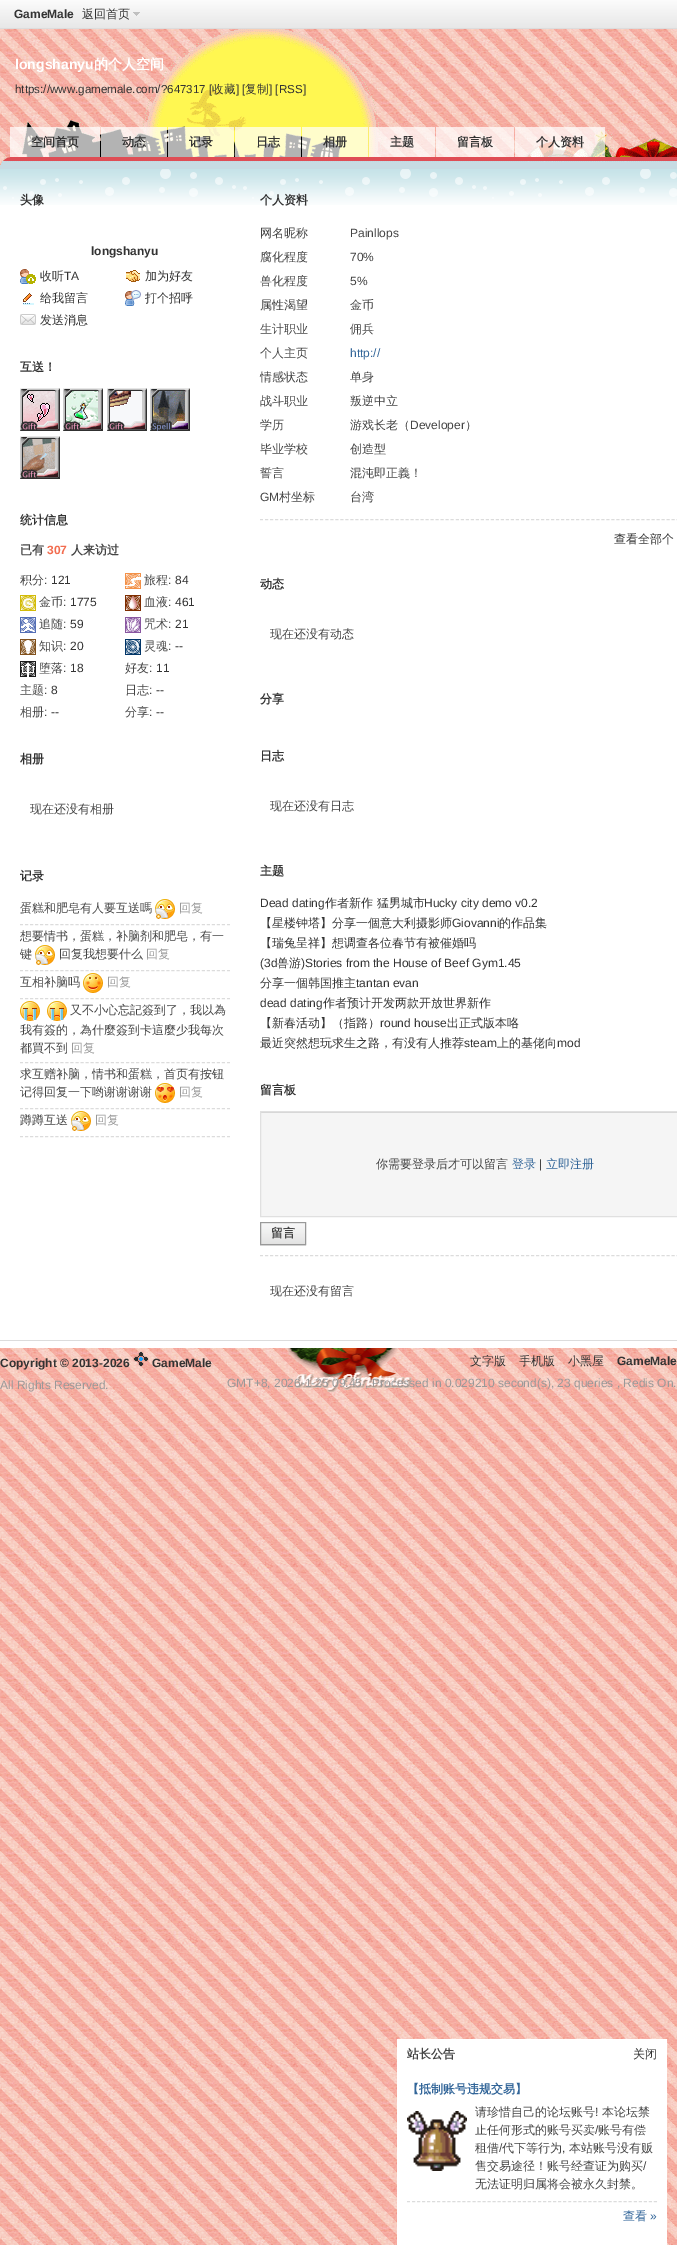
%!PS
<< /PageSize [677 2245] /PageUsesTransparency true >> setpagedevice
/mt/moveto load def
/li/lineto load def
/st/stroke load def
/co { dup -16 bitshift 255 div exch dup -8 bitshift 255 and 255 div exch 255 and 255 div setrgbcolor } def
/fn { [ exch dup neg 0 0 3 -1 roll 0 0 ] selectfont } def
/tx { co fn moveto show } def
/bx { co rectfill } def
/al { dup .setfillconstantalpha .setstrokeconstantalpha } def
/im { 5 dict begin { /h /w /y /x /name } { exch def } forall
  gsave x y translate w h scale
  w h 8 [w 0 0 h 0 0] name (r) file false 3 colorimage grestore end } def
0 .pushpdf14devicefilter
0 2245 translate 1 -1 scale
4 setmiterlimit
0 0 677 2245 16#FFFFFF bx
(media/1.raw) 0 29 677 2216 im
(media/2.raw) 0 0 677 28 im
0 28 677 1 16#DCDCDC bx
(media/3.raw) 133 12 7 4 im
(media/4.raw) 0 29 677 140 im
0.7 al
10 127 90 30 16#FFFFFF bx
101 127 66 30 16#FFFFFF bx
168 127 66 30 16#FFFFFF bx
235 127 66 30 16#FFFFFF bx
302 127 66 30 16#FFFFFF bx
369 127 66 30 16#FFFFFF bx
436 127 78 30 16#FFFFFF bx
515 127 90 30 16#FFFFFF bx
1 al
0 205 677 1135 16#FFFFFF bx
(media/5.raw) 0 169 677 36 im
(media/6.raw) 20 269 16 15 im
(media/7.raw) 126 270 14 12 im
(media/8.raw) 23 293 11 12 im
(media/9.raw) 125 290 16 16 im
(media/10.raw) 20 314 16 11 im
(media/11.raw) 20 388 40 43 im
(media/12.raw) 63 388 40 43 im
(media/13.raw) 107 388 40 43 im
(media/14.raw) 150 388 40 43 im
(media/15.raw) 20 436 40 43 im
(media/16.raw) 125 573 16 16 im
(media/17.raw) 20 595 16 16 im
(media/18.raw) 125 595 16 16 im
(media/19.raw) 20 617 16 16 im
(media/20.raw) 125 617 16 16 im
(media/21.raw) 20 639 16 16 im
(media/22.raw) 125 639 16 16 im
(media/23.raw) 20 661 16 16 im
16#DCDCDC co
[3 2.05] 0 setdash
20 924.5 mt 230 924.5 li st
(media/24.raw) 155 899 20 20 im
20 970.5 mt 230 970.5 li st
(media/24.raw) 35 945 20 20 im
20 998.5 mt 230 998.5 li st
(media/25.raw) 83 973 20 20 im
20 1062.5 mt 230 1062.5 li st
(media/26.raw) 20 1001 20 20 im
(media/26.raw) 47 1001 20 20 im
20 1108.5 mt 230 1108.5 li st
(media/27.raw) 155 1083 20 20 im
20 1136.5 mt 230 1136.5 li st
(media/24.raw) 71 1111 20 20 im
[3 2.02] 0 setdash
260 519.5 mt 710 519.5 li st
261 1113 416 103 16#F5F5F5 bx
260 1112 417 1 16#D4D4D4 bx
16#E0E0E0 co
[] 0 setdash
260.5 1111.5 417 105 rectstroke
260 1245 46 1 16#E5E5E5 bx
(media/28.raw) 261 1223 44 21 im
16#999999 co
260.5 1222.5 45 22 rectstroke
16#DCDCDC co
[3 2.02] 0 setdash
260 1255.5 mt 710 1255.5 li st
(media/29.raw) 0 1341 677 51 im
0 1340 677 1 16#DCDCDC bx
(media/30.raw) 133 1351 16 16 im
397 2039 270 206 16#FFFFFF bx
16#DCDCDC co
[3 2.04] 0 setdash
407 2201.5 mt 657 2201.5 li st
(media/31.raw) 407 2111 60 60 im
(GameMale) 14 18 /LiberationSans-Bold 12 16#333333 tx
(返回首页) 82 18 /WenQuanYiZenHei-Medium 12 16#333333 tx
(longshanyu) 15 69 /LiberationSans-Bold 14 16#FFFFFF tx
(的个人空间) 94 69 /WenQuanYiZenHei-Bold 14 16#FFFFFF tx
(https://www.gamemale.com/?647317 [) 15 93 /LiberationSans-Regular 11.6 16#333333 tx
(收藏) 212 93 /WenQuanYiZenHei-Medium 11.6 16#333333 tx
(] [) 236 93 /LiberationSans-Regular 11.6 16#333333 tx
(复制) 245 93 /WenQuanYiZenHei-Medium 11.6 16#333333 tx
(] [RSS]) 269 93 /LiberationSans-Regular 11.6 16#333333 tx
(空间首页) 31 146 /WenQuanYiZenHei-Bold 12 16#333333 tx
(动态) 122 146 /WenQuanYiZenHei-Bold 12 16#333333 tx
(记录) 189 146 /WenQuanYiZenHei-Bold 12 16#333333 tx
(日志) 256 146 /WenQuanYiZenHei-Bold 12 16#333333 tx
(相册) 323 146 /WenQuanYiZenHei-Bold 12 16#333333 tx
(主题) 390 146 /WenQuanYiZenHei-Bold 12 16#333333 tx
(留言板) 457 146 /WenQuanYiZenHei-Bold 12 16#333333 tx
(个人资料) 536 146 /WenQuanYiZenHei-Bold 12 16#333333 tx
(头像) 20 204 /WenQuanYiZenHei-Bold 12 16#333333 tx
(longshanyu) 91 255 /LiberationSans-Bold 12 16#333333 tx
(收听) 40 280 /WenQuanYiZenHei-Medium 12 16#333333 tx
(TA) 64 280 /LiberationSans-Regular 12 16#333333 tx
(加为好友) 145 280 /WenQuanYiZenHei-Medium 12 16#333333 tx
(给我留言) 40 302 /WenQuanYiZenHei-Medium 12 16#333333 tx
(打个招呼) 145 302 /WenQuanYiZenHei-Medium 12 16#333333 tx
(发送消息) 40 324 /WenQuanYiZenHei-Medium 12 16#333333 tx
(互送！) 20 371 /WenQuanYiZenHei-Bold 12 16#333333 tx
(统计信息) 20 524 /WenQuanYiZenHei-Bold 12 16#333333 tx
(已有) 20 554 /WenQuanYiZenHei-Bold 12 16#444444 tx
(307) 47 554 /LiberationSans-Bold 12 16#F26C4F tx
(人来访过) 71 554 /WenQuanYiZenHei-Bold 12 16#444444 tx
(积分) 20 584 /WenQuanYiZenHei-Medium 12 16#444444 tx
(:) 44 584 /LiberationSans-Regular 12 16#444444 tx
(121) 51 584 /LiberationSans-Regular 12 16#333333 tx
(旅程) 144 584 /WenQuanYiZenHei-Medium 12 16#444444 tx
(:) 168 584 /LiberationSans-Regular 12 16#444444 tx
(84) 175 584 /LiberationSans-Regular 12 16#333333 tx
(金币) 39 606 /WenQuanYiZenHei-Medium 12 16#444444 tx
(:) 63 606 /LiberationSans-Regular 12 16#444444 tx
(1775) 70 606 /LiberationSans-Regular 12 16#333333 tx
(血液) 144 606 /WenQuanYiZenHei-Medium 12 16#444444 tx
(:) 168 606 /LiberationSans-Regular 12 16#444444 tx
(461) 175 606 /LiberationSans-Regular 12 16#333333 tx
(追随) 39 628 /WenQuanYiZenHei-Medium 12 16#444444 tx
(:) 63 628 /LiberationSans-Regular 12 16#444444 tx
(59) 70 628 /LiberationSans-Regular 12 16#333333 tx
(咒术) 144 628 /WenQuanYiZenHei-Medium 12 16#444444 tx
(:) 168 628 /LiberationSans-Regular 12 16#444444 tx
(21) 175 628 /LiberationSans-Regular 12 16#333333 tx
(知识) 39 650 /WenQuanYiZenHei-Medium 12 16#444444 tx
(:) 63 650 /LiberationSans-Regular 12 16#444444 tx
(20) 70 650 /LiberationSans-Regular 12 16#333333 tx
(灵魂) 144 650 /WenQuanYiZenHei-Medium 12 16#444444 tx
(:) 168 650 /LiberationSans-Regular 12 16#444444 tx
(--) 175 650 /LiberationSans-Regular 12 16#333333 tx
(堕落) 39 672 /WenQuanYiZenHei-Medium 12 16#444444 tx
(:) 63 672 /LiberationSans-Regular 12 16#444444 tx
(18) 70 672 /LiberationSans-Regular 12 16#333333 tx
(好友) 125 672 /WenQuanYiZenHei-Medium 12 16#444444 tx
(:) 149 672 /LiberationSans-Regular 12 16#444444 tx
(11) 156 672 /LiberationSans-Regular 12 16#333333 tx
(主题) 20 694 /WenQuanYiZenHei-Medium 12 16#444444 tx
(:) 44 694 /LiberationSans-Regular 12 16#444444 tx
(8) 51 694 /LiberationSans-Regular 12 16#333333 tx
(日志) 125 694 /WenQuanYiZenHei-Medium 12 16#444444 tx
(:) 149 694 /LiberationSans-Regular 12 16#444444 tx
(--) 156 694 /LiberationSans-Regular 12 16#333333 tx
(相册) 20 716 /WenQuanYiZenHei-Medium 12 16#444444 tx
(:) 44 716 /LiberationSans-Regular 12 16#444444 tx
(--) 51 716 /LiberationSans-Regular 12 16#333333 tx
(分享) 125 716 /WenQuanYiZenHei-Medium 12 16#444444 tx
(:) 149 716 /LiberationSans-Regular 12 16#444444 tx
(--) 156 716 /LiberationSans-Regular 12 16#333333 tx
(相册) 20 763 /WenQuanYiZenHei-Bold 12 16#333333 tx
(现在还没有相册) 30 813 /WenQuanYiZenHei-Medium 12 16#444444 tx
(记录) 20 880 /WenQuanYiZenHei-Bold 12 16#333333 tx
(蛋糕和肥皂有人要互送嗎) 20 912 /WenQuanYiZenHei-Medium 12 16#444444 tx
(回复) 179 912 /WenQuanYiZenHei-Medium 12 16#999999 tx
(想要情书，蛋糕，补脑剂和肥皂，有一) 20 940 /WenQuanYiZenHei-Medium 12 16#444444 tx
(键) 20 958 /WenQuanYiZenHei-Medium 12 16#444444 tx
(回复我想要什么) 59 958 /WenQuanYiZenHei-Medium 12 16#444444 tx
(回复) 146 958 /WenQuanYiZenHei-Medium 12 16#999999 tx
(互相补脑吗) 20 986 /WenQuanYiZenHei-Medium 12 16#444444 tx
(回复) 107 986 /WenQuanYiZenHei-Medium 12 16#999999 tx
(又不小心忘記簽到了，我以為) 70 1014 /WenQuanYiZenHei-Medium 12 16#444444 tx
(我有簽的，為什麼簽到卡這麼少我每次) 20 1034 /WenQuanYiZenHei-Medium 12 16#444444 tx
(都買不到) 20 1052 /WenQuanYiZenHei-Medium 12 16#444444 tx
(回复) 71 1052 /WenQuanYiZenHei-Medium 12 16#999999 tx
(求互赠补脑，情书和蛋糕，首页有按钮) 20 1078 /WenQuanYiZenHei-Medium 12 16#444444 tx
(记得回复一下哟谢谢谢谢) 20 1096 /WenQuanYiZenHei-Medium 12 16#444444 tx
(回复) 179 1096 /WenQuanYiZenHei-Medium 12 16#999999 tx
(蹲蹲互送) 20 1124 /WenQuanYiZenHei-Medium 12 16#444444 tx
(回复) 95 1124 /WenQuanYiZenHei-Medium 12 16#999999 tx
(个人资料) 260 204 /WenQuanYiZenHei-Bold 12 16#333333 tx
(网名昵称) 260 237 /WenQuanYiZenHei-Medium 12 16#444444 tx
(Painllops) 350 237 /LiberationSans-Regular 12 16#444444 tx
(腐化程度) 260 261 /WenQuanYiZenHei-Medium 12 16#444444 tx
(70%) 350 261 /LiberationSans-Regular 12 16#444444 tx
(兽化程度) 260 285 /WenQuanYiZenHei-Medium 12 16#444444 tx
(5%) 350 285 /LiberationSans-Regular 12 16#444444 tx
(属性渴望) 260 309 /WenQuanYiZenHei-Medium 12 16#444444 tx
(金币) 350 309 /WenQuanYiZenHei-Medium 12 16#444444 tx
(生计职业) 260 333 /WenQuanYiZenHei-Medium 12 16#444444 tx
(佣兵) 350 333 /WenQuanYiZenHei-Medium 12 16#444444 tx
(个人主页) 260 357 /WenQuanYiZenHei-Medium 12 16#444444 tx
(http://) 350 357 /LiberationSans-Regular 12 16#336699 tx
(情感状态) 260 381 /WenQuanYiZenHei-Medium 12 16#444444 tx
(单身) 350 381 /WenQuanYiZenHei-Medium 12 16#444444 tx
(战斗职业) 260 405 /WenQuanYiZenHei-Medium 12 16#444444 tx
(叛逆中立) 350 405 /WenQuanYiZenHei-Medium 12 16#444444 tx
(学历) 260 429 /WenQuanYiZenHei-Medium 12 16#444444 tx
(游戏长老（) 350 429 /WenQuanYiZenHei-Medium 12 16#444444 tx
(Developer) 410 429 /LiberationSans-Regular 12 16#444444 tx
(）) 465 429 /WenQuanYiZenHei-Medium 12 16#444444 tx
(毕业学校) 260 453 /WenQuanYiZenHei-Medium 12 16#444444 tx
(创造型) 350 453 /WenQuanYiZenHei-Medium 12 16#444444 tx
(誓言) 260 477 /WenQuanYiZenHei-Medium 12 16#444444 tx
(混沌即正義！) 350 477 /WenQuanYiZenHei-Medium 12 16#444444 tx
(GM) 260 501 /LiberationSans-Regular 12 16#444444 tx
(村坐标) 279 501 /WenQuanYiZenHei-Medium 12 16#444444 tx
(台湾) 350 501 /WenQuanYiZenHei-Medium 12 16#444444 tx
(查看全部个) 614 543 /WenQuanYiZenHei-Medium 12 16#333333 tx
(动态) 260 588 /WenQuanYiZenHei-Bold 12 16#333333 tx
(现在还没有动态) 270 638 /WenQuanYiZenHei-Medium 12 16#444444 tx
(分享) 260 703 /WenQuanYiZenHei-Bold 12 16#333333 tx
(日志) 260 760 /WenQuanYiZenHei-Bold 12 16#333333 tx
(现在还没有日志) 270 810 /WenQuanYiZenHei-Medium 12 16#444444 tx
(主题) 260 875 /WenQuanYiZenHei-Bold 12 16#333333 tx
(Dead dating) 260 907 /LiberationSans-Regular 12 16#333333 tx
(作者新作 猛男城市) 325 907 /WenQuanYiZenHei-Medium 12 16#333333 tx
(Hucky city demo v0.2) 424 907 /LiberationSans-Regular 12 16#333333 tx
(【星楼钟塔】分享一個意大利摄影师) 260 927 /WenQuanYiZenHei-Medium 12 16#333333 tx
(Giovanni) 452 927 /LiberationSans-Regular 12 16#333333 tx
(的作品集) 499 927 /WenQuanYiZenHei-Medium 12 16#333333 tx
(【瑞兔呈祥】想调查各位春节有被催婚吗) 260 947 /WenQuanYiZenHei-Medium 12 16#333333 tx
(\(3d) 260 967 /LiberationSans-Regular 12 16#333333 tx
(兽游) 277 967 /WenQuanYiZenHei-Medium 12 16#333333 tx
(\)Stories from the House of Beef Gym1.45) 301 967 /LiberationSans-Regular 12 16#333333 tx
(分享一個韩国推主) 260 987 /WenQuanYiZenHei-Medium 12 16#333333 tx
(tantan evan) 356 987 /LiberationSans-Regular 12 16#333333 tx
(dead dating) 260 1007 /LiberationSans-Regular 12 16#333333 tx
(作者预计开发两款开放世界新作) 323 1007 /WenQuanYiZenHei-Medium 12 16#333333 tx
(【新春活动】（指路）) 260 1027 /WenQuanYiZenHei-Medium 12 16#333333 tx
(round house) 380 1027 /LiberationSans-Regular 12 16#333333 tx
(出正式版本咯) 447 1027 /WenQuanYiZenHei-Medium 12 16#333333 tx
(最近突然想玩求生之路，有没有人推荐) 260 1047 /WenQuanYiZenHei-Medium 12 16#333333 tx
(steam) 464 1047 /LiberationSans-Regular 12 16#333333 tx
(上的基佬向) 497 1047 /WenQuanYiZenHei-Medium 12 16#333333 tx
(mod) 557 1047 /LiberationSans-Regular 12 16#333333 tx
(留言板) 260 1094 /WenQuanYiZenHei-Bold 12 16#333333 tx
(你需要登录后才可以留言) 376 1168 /WenQuanYiZenHei-Medium 12 16#444444 tx
(登录) 512 1168 /WenQuanYiZenHei-Medium 12 16#336699 tx
(|) 539 1168 /LiberationSans-Regular 12 16#444444 tx
(立即注册) 546 1168 /WenQuanYiZenHei-Medium 12 16#336699 tx
(留言) 271 1237 /WenQuanYiZenHei-Bold 12 16#444444 tx
(现在还没有留言) 270 1295 /WenQuanYiZenHei-Medium 12 16#444444 tx
(Copyright © 2013-2026) 0 1367 /LiberationSans-Bold 12 16#333333 tx
(GameMale) 152 1367 /LiberationSans-Bold 12 16#333333 tx
(All Rights Reserved.) 0 1389 /LiberationSans-Regular 12 16#999999 tx
(文字版) 470 1365 /WenQuanYiZenHei-Medium 12 16#333333 tx
(手机版) 519 1365 /WenQuanYiZenHei-Medium 12 16#333333 tx
(小黑屋) 568 1365 /WenQuanYiZenHei-Medium 12 16#333333 tx
(GameMale) 617 1365 /LiberationSans-Bold 12 16#333333 tx
(GMT+8, 2026-1-25 09:45 , Processed in 0.029210 second\(s\), 23 queries , Redis On.) 227 1387 /LiberationSans-Regular 12 16#999999 tx
(站长公告) 407 2058 /WenQuanYiZenHei-Bold 12 16#444444 tx
(关闭) 633 2058 /WenQuanYiZenHei-Medium 12 16#333333 tx
(【抵制账号违规交易】) 407 2093 /WenQuanYiZenHei-Bold 12 16#336699 tx
(请珍惜自己的论坛账号) 475 2116 /WenQuanYiZenHei-Medium 12 16#444444 tx
(!) 595 2116 /LiberationSans-Regular 12 16#444444 tx
(本论坛禁) 602 2116 /WenQuanYiZenHei-Medium 12 16#444444 tx
(止任何形式的账号买卖) 475 2134 /WenQuanYiZenHei-Medium 12 16#444444 tx
(/) 595 2134 /LiberationSans-Regular 12 16#444444 tx
(账号有偿) 598 2134 /WenQuanYiZenHei-Medium 12 16#444444 tx
(租借) 475 2152 /WenQuanYiZenHei-Medium 12 16#444444 tx
(/) 499 2152 /LiberationSans-Regular 12 16#444444 tx
(代下等行为) 502 2152 /WenQuanYiZenHei-Medium 12 16#444444 tx
(,) 562 2152 /LiberationSans-Regular 12 16#444444 tx
(本站账号没有贩) 569 2152 /WenQuanYiZenHei-Medium 12 16#444444 tx
(售交易途径！账号经查证为购买) 475 2170 /WenQuanYiZenHei-Medium 12 16#444444 tx
(/) 643 2170 /LiberationSans-Regular 12 16#444444 tx
(无法证明归属将会被永久封禁。) 475 2188 /WenQuanYiZenHei-Medium 12 16#444444 tx
(查看) 623 2220 /WenQuanYiZenHei-Medium 12 16#336699 tx
(») 650 2220 /LiberationSans-Regular 12 16#336699 tx
.poppdf14devicefilter showpage
